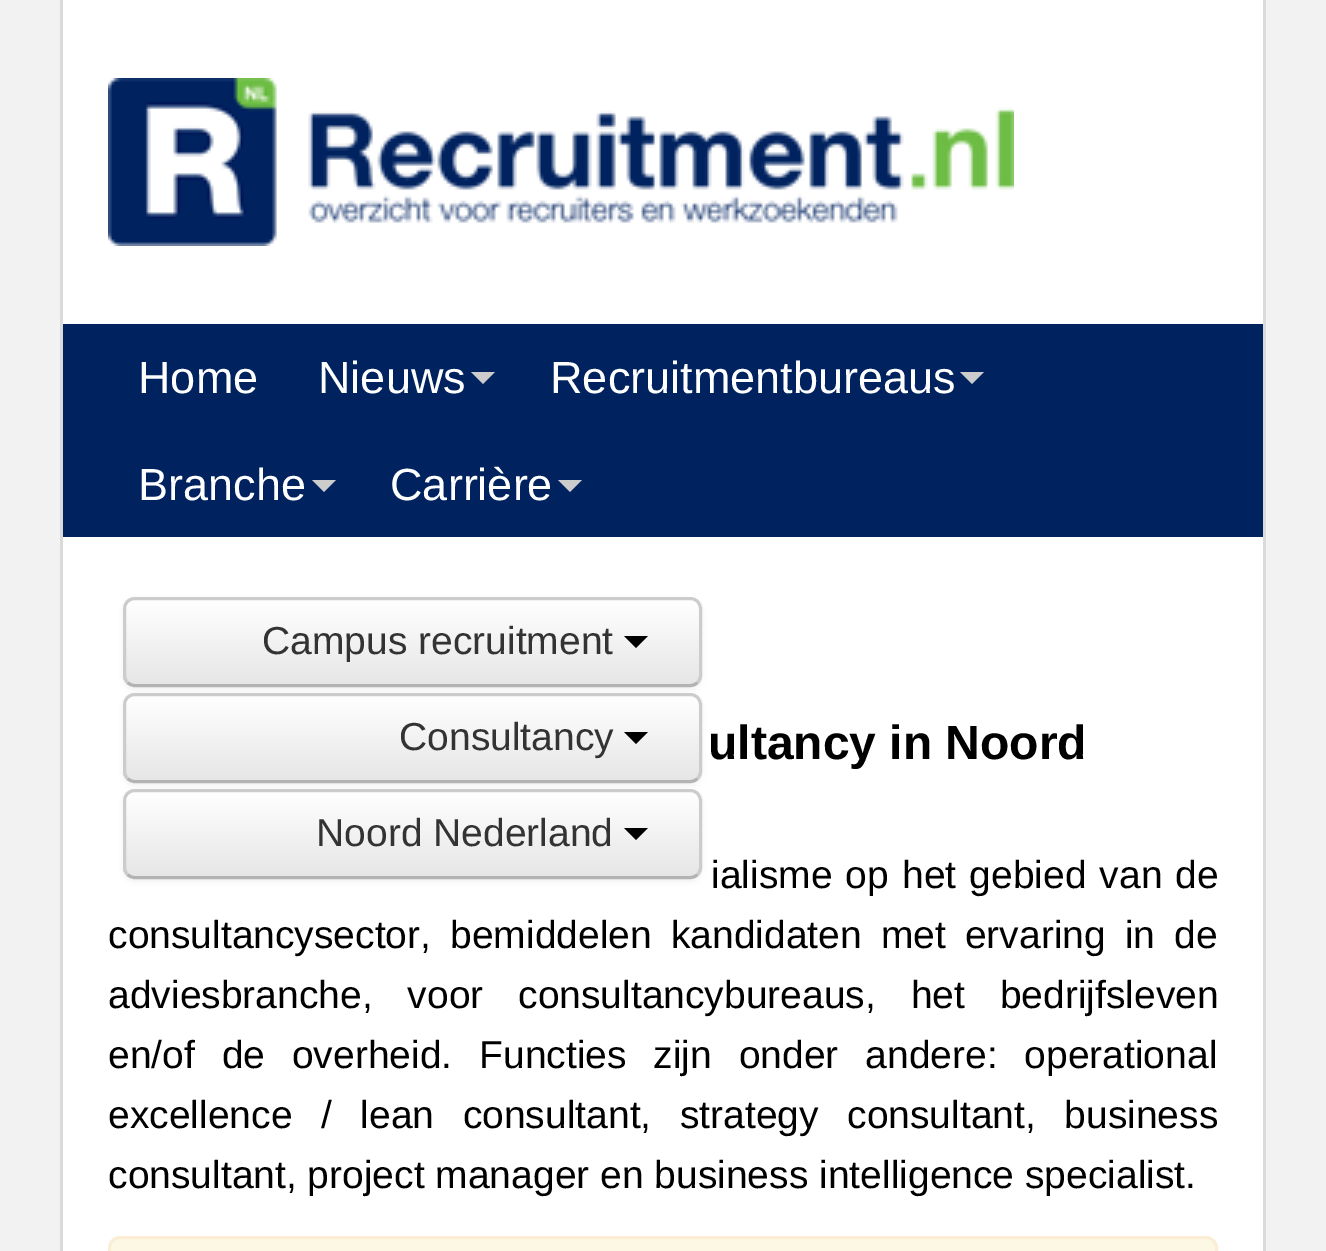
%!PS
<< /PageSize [1326 1251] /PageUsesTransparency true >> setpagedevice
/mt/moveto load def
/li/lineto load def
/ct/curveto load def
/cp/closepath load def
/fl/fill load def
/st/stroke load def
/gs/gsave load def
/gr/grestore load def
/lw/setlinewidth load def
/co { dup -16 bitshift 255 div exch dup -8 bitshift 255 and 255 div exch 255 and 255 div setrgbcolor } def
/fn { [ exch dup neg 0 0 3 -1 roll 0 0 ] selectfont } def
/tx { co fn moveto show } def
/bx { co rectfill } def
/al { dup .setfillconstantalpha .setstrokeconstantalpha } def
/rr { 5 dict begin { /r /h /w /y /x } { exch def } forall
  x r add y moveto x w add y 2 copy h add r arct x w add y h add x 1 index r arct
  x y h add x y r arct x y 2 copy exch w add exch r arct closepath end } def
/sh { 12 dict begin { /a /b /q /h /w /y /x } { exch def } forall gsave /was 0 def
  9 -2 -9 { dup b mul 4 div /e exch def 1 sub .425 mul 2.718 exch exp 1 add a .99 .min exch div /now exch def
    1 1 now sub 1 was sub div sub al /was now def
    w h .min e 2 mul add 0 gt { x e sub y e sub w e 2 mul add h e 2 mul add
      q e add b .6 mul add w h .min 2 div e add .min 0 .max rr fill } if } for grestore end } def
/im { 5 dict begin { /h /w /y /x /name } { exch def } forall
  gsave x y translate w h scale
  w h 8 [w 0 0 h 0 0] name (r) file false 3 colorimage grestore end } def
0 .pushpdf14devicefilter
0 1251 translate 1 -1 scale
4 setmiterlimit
0 0 1326 1251 16#F2F2F2 bx
63 324 1200 213 16#002360 bx
gs
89 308 mt 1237 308 li 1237 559 li 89 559 li cp 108 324 mt 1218 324 li 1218 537 li 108 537 li cp eoclip newpath
16#000000 co
108 327 1110 213 0 6 .07 sh
gr
63 0 1200 324 16#FFFFFF bx
(media/1.raw) 108 78 906 168 im
1263 0 3 1251 16#DADADA bx
60 0 3 1251 16#DADADA bx
16#CCCCCC co
471 372 mt 495 372 li 483 384 li cp fl
960 372 mt 984 372 li 972 384 li cp fl
312 480 mt 336 480 li 324 492 li cp fl
558 480 mt 582 480 li 570 492 li cp fl
63 537 1200 714 16#FFFFFF bx
16#000000 co
123 600 579 90 12 3 .05 sh
gs
123 597 579 90 12 rr clip newpath
gs 123 600 mt 702 600 li 702 684 li 123 684 li cp clip newpath
<< /ShadingType 2 /ColorSpace /DeviceRGB /Coords [413 600 413 684] /Extend [true true] /Function << /FunctionType 2 /Domain [0 1] /C0 [1 1 1] /C1 [.902 .902 .902] /N 1 >> >> shfill gr
gr
16#B3B3B3 co
3 lw
697.5 682.5 mt 695.5 684.5 693 685.5 690 685.5 ct 135 685.5 li 132 685.5 129.5 684.5 127.5 682.5 ct st
16#CCCCCC co
127.5 682.5 mt 125.5 680.5 124.5 678 124.5 675 ct 124.5 609 li 124.5 606 125.5 603.5 127.5 601.5 ct 129.5 599.5 132 598.5 135 598.5 ct 690 598.5 li 693 598.5 695.5 599.5 697.5 601.5 ct 699.5 603.5 700.5 606 700.5 609 ct 700.5 675 li 700.5 678 699.5 680.5 697.5 682.5 ct st
16#000000 co
624 636 mt 648 636 li 636 648 li cp fl
123 696 579 90 12 3 .05 sh
gs
123 693 579 90 12 rr clip newpath
gs 123 696 mt 702 696 li 702 780 li 123 780 li cp clip newpath
<< /ShadingType 2 /ColorSpace /DeviceRGB /Coords [413 696 413 780] /Extend [true true] /Function << /FunctionType 2 /Domain [0 1] /C0 [1 1 1] /C1 [.902 .902 .902] /N 1 >> >> shfill gr
gr
16#B3B3B3 co
697.5 778.5 mt 695.5 780.5 693 781.5 690 781.5 ct 135 781.5 li 132 781.5 129.5 780.5 127.5 778.5 ct st
16#CCCCCC co
127.5 778.5 mt 125.5 776.5 124.5 774 124.5 771 ct 124.5 705 li 124.5 702 125.5 699.5 127.5 697.5 ct 129.5 695.5 132 694.5 135 694.5 ct 690 694.5 li 693 694.5 695.5 695.5 697.5 697.5 ct 699.5 699.5 700.5 702 700.5 705 ct 700.5 771 li 700.5 774 699.5 776.5 697.5 778.5 ct st
16#000000 co
624 732 mt 648 732 li 636 744 li cp fl
123 792 579 90 12 3 .05 sh
gs
123 789 579 90 12 rr clip newpath
gs 123 792 mt 702 792 li 702 876 li 123 876 li cp clip newpath
<< /ShadingType 2 /ColorSpace /DeviceRGB /Coords [413 792 413 876] /Extend [true true] /Function << /FunctionType 2 /Domain [0 1] /C0 [1 1 1] /C1 [.902 .902 .902] /N 1 >> >> shfill gr
gr
16#B3B3B3 co
697.5 874.5 mt 695.5 876.5 693 877.5 690 877.5 ct 135 877.5 li 132 877.5 129.5 876.5 127.5 874.5 ct st
16#CCCCCC co
127.5 874.5 mt 125.5 872.5 124.5 870 124.5 867 ct 124.5 801 li 124.5 798 125.5 795.5 127.5 793.5 ct 129.5 791.5 132 790.5 135 790.5 ct 690 790.5 li 693 790.5 695.5 791.5 697.5 793.5 ct 699.5 795.5 700.5 798 700.5 801 ct 700.5 867 li 700.5 870 699.5 872.5 697.5 874.5 ct st
16#000000 co
624 828 mt 648 828 li 636 840 li cp fl
16#FCF8E3 co
109.5 1237.5 1107 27 10.5 rr gs fl gr
16#FBEED5 co
st
(Home) 138 393 /LiberationSans-Regular 45 16#FFFFFF tx
(Nieuws) 318 393 /LiberationSans-Regular 45 16#FFFFFF tx
(Recruitmentbureaus) 550 393 /LiberationSans-Regular 45 16#FFFFFF tx
(Branche) 138 500 /LiberationSans-Regular 45 16#FFFFFF tx
(Carrière) 390 500 /LiberationSans-Regular 45 16#FFFFFF tx
(Campus recruitment) 262 654 /LiberationSans-Regular 39 16#333333 tx
(Consultancy) 399 750 /LiberationSans-Regular 39 16#333333 tx
(Noord Nederland) 316 846 /LiberationSans-Regular 39 16#333333 tx
(ultancy in Noord) 708 759 /LiberationSans-Bold 48 16#000000 tx
/LiberationSans-Regular 39 fn
711 888 mt 2.25 0 32 (ialisme op het gebied van de) widthshow
108 948 mt 8.25 0 32 (consultancysector, bemiddelen kandidaten met ervaring in de) widthshow
108 1008 mt 24 0 32 (adviesbranche, voor consultancybureaus, het bedrijfsleven) widthshow
108 1068 mt 16 0 32 (en/of de overheid. Functies zijn onder andere: operational) widthshow
108 1128 mt 17.75 0 32 (excellence / lean consultant, strategy consultant, business) widthshow
(consultant, project manager en business intelligence specialist.) 108 1188 /LiberationSans-Regular 39 16#000000 tx
.poppdf14devicefilter showpage
